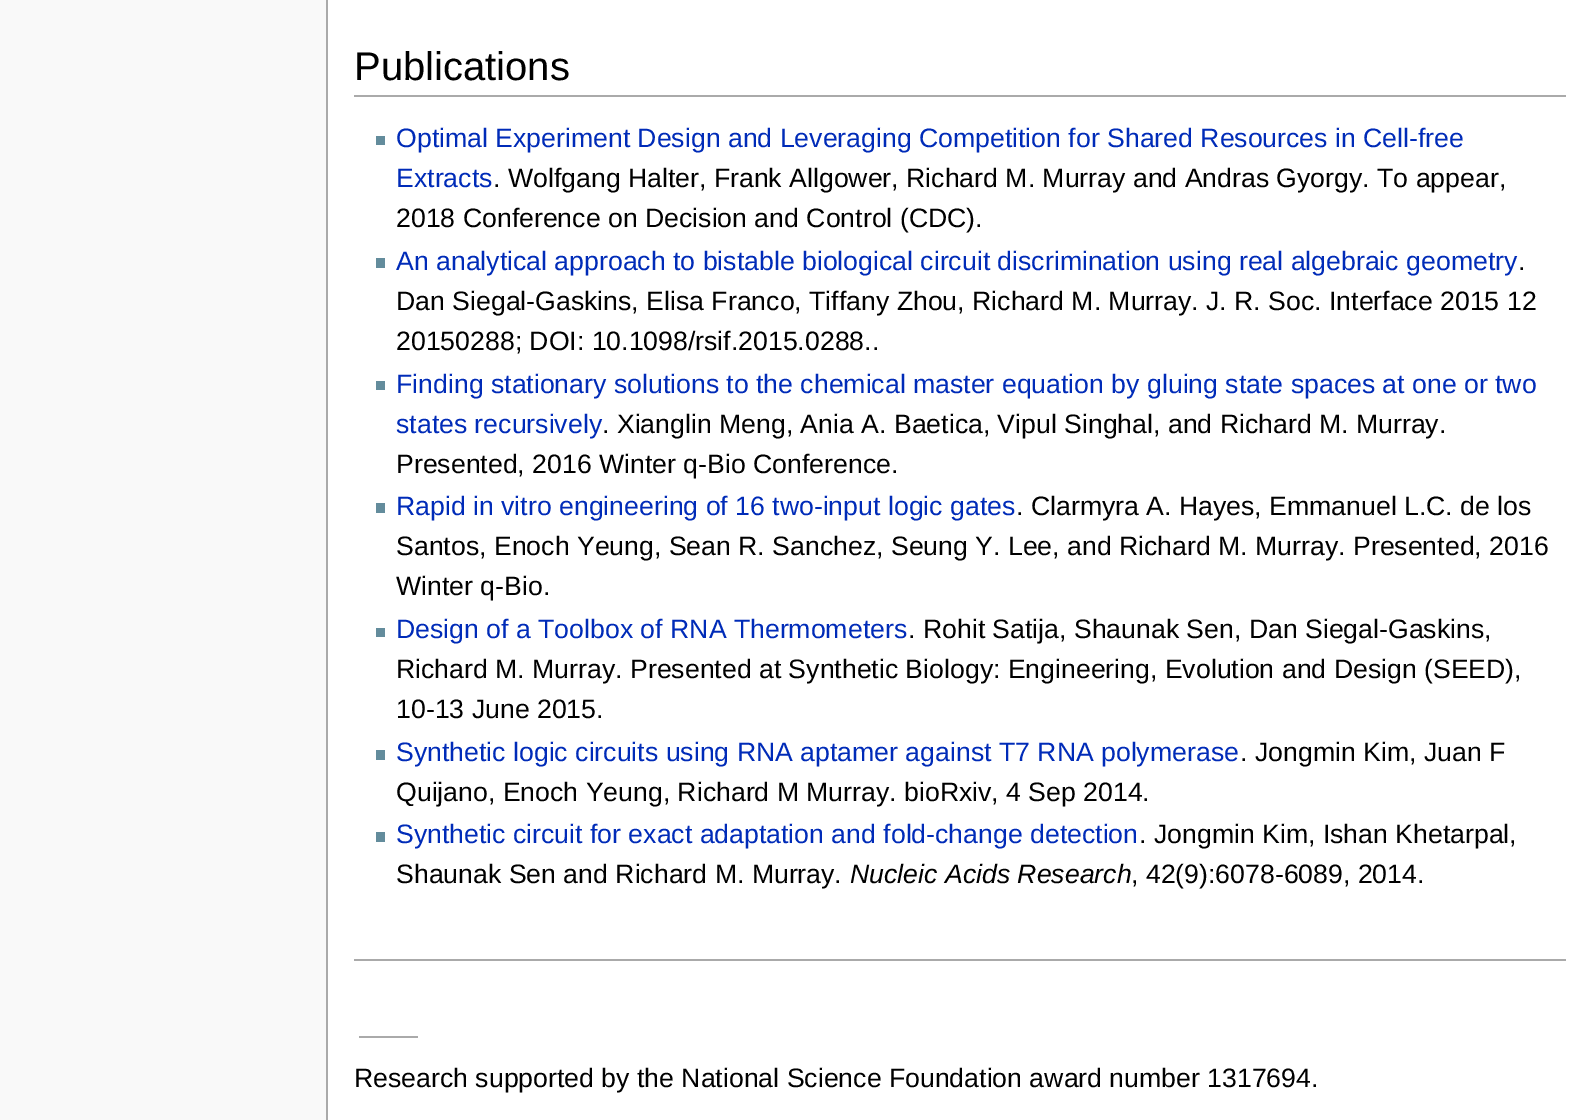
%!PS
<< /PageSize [1591 1120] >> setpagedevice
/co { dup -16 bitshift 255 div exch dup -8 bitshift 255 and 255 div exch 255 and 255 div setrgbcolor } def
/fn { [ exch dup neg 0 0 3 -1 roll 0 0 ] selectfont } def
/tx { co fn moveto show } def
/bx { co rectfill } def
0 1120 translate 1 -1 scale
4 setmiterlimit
0 0 1591 1120 16#F9F9F9 bx
328 0 1263 1120 16#FFFFFF bx
326 0 2 1120 16#AAAAAA bx
354 95 1212 2 16#AAAAAA bx
376 136 9 9 16#638C9C bx
376 258 9 10 16#638C9C bx
376 381 9 9 16#638C9C bx
376 503 9 10 16#638C9C bx
376 628 9 9 16#638C9C bx
376 750 9 10 16#638C9C bx
376 832 9 10 16#638C9C bx
354 959 1212 2 16#AAAAAA bx
359 1036 59 2 16#AAAAAA bx
(Publications) 354 80 /LiberationSans-Regular 40 16#000000 tx
(Optimal Experiment Design and Leveraging Competition for Shared Resources in Cell-free) 396 147 /LiberationSans-Regular 26.65 16#002BB8 tx
(Extracts) 396 187 /LiberationSans-Regular 26.65 16#002BB8 tx
(. Wolfgang Halter, Frank Allgower, Richard M. Murray and Andras Gyorgy. To appear,) 493 187 /LiberationSans-Regular 26.65 16#000000 tx
(2018 Conference on Decision and Control \(CDC\).) 396 227 /LiberationSans-Regular 26.65 16#000000 tx
(An analytical approach to bistable biological circuit discrimination using real algebraic geometry) 396 270 /LiberationSans-Regular 26.65 16#002BB8 tx
(.) 1518 270 /LiberationSans-Regular 26.65 16#000000 tx
(Dan Siegal-Gaskins, Elisa Franco, Tiffany Zhou, Richard M. Murray. J. R. Soc. Interface 2015 12) 396 310 /LiberationSans-Regular 26.65 16#000000 tx
(20150288; DOI: 10.1098/rsif.2015.0288..) 396 350 /LiberationSans-Regular 26.65 16#000000 tx
(Finding stationary solutions to the chemical master equation by gluing state spaces at one or two) 396 393 /LiberationSans-Regular 26.65 16#002BB8 tx
(states recursively) 396 433 /LiberationSans-Regular 26.65 16#002BB8 tx
(. Xianglin Meng, Ania A. Baetica, Vipul Singhal, and Richard M. Murray.) 602 433 /LiberationSans-Regular 26.65 16#000000 tx
(Presented, 2016 Winter q-Bio Conference.) 396 473 /LiberationSans-Regular 26.65 16#000000 tx
(Rapid in vitro engineering of 16 two-input logic gates) 396 515 /LiberationSans-Regular 26.65 16#002BB8 tx
(. Clarmyra A. Hayes, Emmanuel L.C. de los) 1016 515 /LiberationSans-Regular 26.65 16#000000 tx
(Santos, Enoch Yeung, Sean R. Sanchez, Seung Y. Lee, and Richard M. Murray. Presented, 2016) 396 555 /LiberationSans-Regular 26.65 16#000000 tx
(Winter q-Bio.) 396 595 /LiberationSans-Regular 26.65 16#000000 tx
(Design of a Toolbox of RNA Thermometers) 396 638 /LiberationSans-Regular 26.65 16#002BB8 tx
(. Rohit Satija, Shaunak Sen, Dan Siegal-Gaskins,) 908 638 /LiberationSans-Regular 26.65 16#000000 tx
(Richard M. Murray. Presented at Synthetic Biology: Engineering, Evolution and Design \(SEED\),) 396 678 /LiberationSans-Regular 26.65 16#000000 tx
(10-13 June 2015.) 396 718 /LiberationSans-Regular 26.65 16#000000 tx
(Synthetic logic circuits using RNA aptamer against T7 RNA polymerase) 396 761 /LiberationSans-Regular 26.65 16#002BB8 tx
(. Jongmin Kim, Juan F) 1240 761 /LiberationSans-Regular 26.65 16#000000 tx
(Quijano, Enoch Yeung, Richard M Murray. bioRxiv, 4 Sep 2014.) 396 801 /LiberationSans-Regular 26.65 16#000000 tx
(Synthetic circuit for exact adaptation and fold-change detection) 396 843 /LiberationSans-Regular 26.65 16#002BB8 tx
(. Jongmin Kim, Ishan Khetarpal,) 1139 843 /LiberationSans-Regular 26.65 16#000000 tx
(Shaunak Sen and Richard M. Murray.) 396 883 /LiberationSans-Regular 26.65 16#000000 tx
(Nucleic Acids Research) 850 883 /LiberationSans-Italic 26.65 16#000000 tx
(, 42\(9\):6078-6089, 2014.) 1131 883 /LiberationSans-Regular 26.65 16#000000 tx
(Research supported by the National Science Foundation award number 1317694.) 354 1087 /LiberationSans-Regular 26.65 16#000000 tx
showpage
